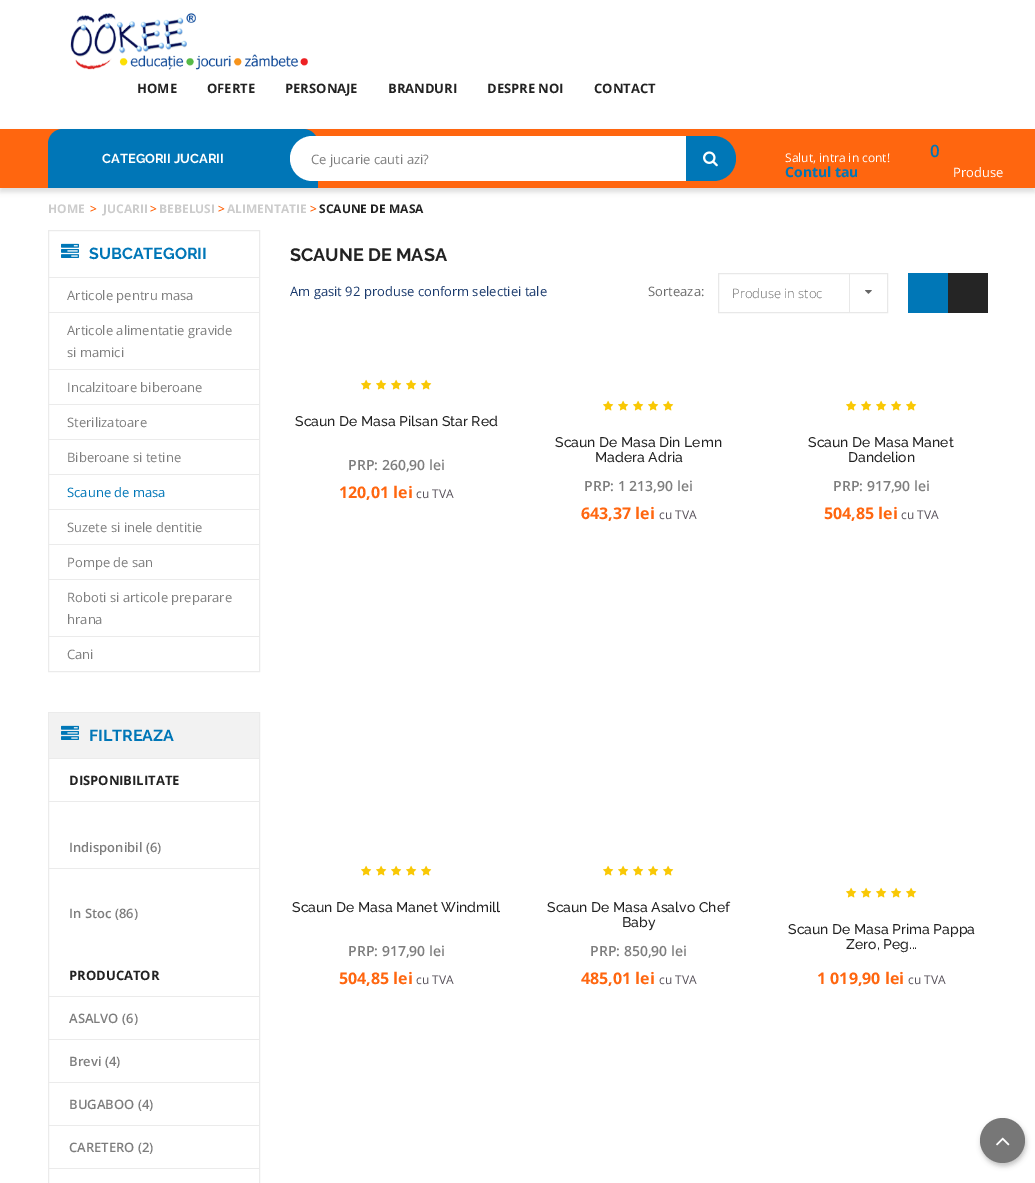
%!PS
<< /PageSize [1035 1183] /PageUsesTransparency true >> setpagedevice
/mt/moveto load def
/li/lineto load def
/ct/curveto load def
/cp/closepath load def
/fl/fill load def
/co { dup -16 bitshift 255 div exch dup -8 bitshift 255 and 255 div exch 255 and 255 div setrgbcolor } def
/fn { [ exch dup neg 0 0 3 -1 roll 0 0 ] selectfont } def
/tx { co fn moveto show } def
/bx { co rectfill } def
/al { dup .setfillconstantalpha .setstrokeconstantalpha } def
/ci { newpath 0 360 arc closepath } def
/rr { 5 dict begin { /r /h /w /y /x } { exch def } forall
  x r add y moveto x w add y 2 copy h add r arct x w add y h add x 1 index r arct
  x y h add x y r arct x y 2 copy exch w add exch r arct closepath end } def
/sh { 12 dict begin { /a /b /q /h /w /y /x } { exch def } forall gsave /was 0 def
  9 -2 -9 { dup b mul 4 div /e exch def 1 sub .425 mul 2.718 exch exp 1 add a .99 .min exch div /now exch def
    1 1 now sub 1 was sub div sub al /was now def
    w h .min e 2 mul add 0 gt { x e sub y e sub w e 2 mul add h e 2 mul add
      q e add b .6 mul add w h .min 2 div e add .min 0 .max rr fill } if } for grestore end } def
/im { 5 dict begin { /h /w /y /x /name } { exch def } forall
  gsave x y translate w h scale
  w h 8 [w 0 0 h 0 0] name (r) file false 3 colorimage grestore end } def
0 .pushpdf14devicefilter
0 1183 translate 1 -1 scale
4 setmiterlimit
0 0 1035 1183 16#FFFFFF bx
(media/1.raw) 70 13 238 57 im
16#DDDDDD co
0 133 1035 59 0 2.5 1 sh
0 129 1035 59 16#FF660F bx
16#0076B7 co
63 129 mt 303 129 li 311.5 129 318 135.5 318 144 ct 318 188 li 48 188 li 48 144 li 48 135.5 54.5 129 63 129 ct cp fl
16#FFFFFF co
312.5 136 mt 686 136 li 686 181 li 312.5 181 li 300 181 290 171 290 158.5 ct 290 146 300 136 312.5 136 ct cp fl
16#0077B7 co
686 136 mt 713.5 136 li 726 136 736 146 736 158.5 ct 736 171 726 181 713.5 181 ct 686 181 li cp fl
(media/2.raw) 703 151 15 16 im
16#EBEBEB co
48.5 230.5 211 441 rectstroke
(media/3.raw) 61 243 18 15 im
49 277 210 1 16#EBEBEB bx
49 312 210 1 16#EBEBEB bx
49 369 210 1 16#EBEBEB bx
49 404 210 1 16#EBEBEB bx
49 439 210 1 16#EBEBEB bx
49 474 210 1 16#EBEBEB bx
49 509 210 1 16#EBEBEB bx
49 544 210 1 16#EBEBEB bx
49 579 210 1 16#EBEBEB bx
49 636 210 1 16#EBEBEB bx
48.5 712.5 211 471 rectstroke
49 713 210 45 16#F2F2F2 bx
49 758 210 1 16#EBEBEB bx
(media/4.raw) 61 725 18 15 im
49 801 210 1 16#EBEBEB bx
49 868 210 1 16#EBEBEB bx
49 996 210 1 16#EBEBEB bx
49 1039 210 1 16#EBEBEB bx
49 1082 210 1 16#EBEBEB bx
49 1125 210 1 16#EBEBEB bx
49 1168 210 1 16#EBEBEB bx
16#E8E8E8 co
718.5 273.5 169 39 rectstroke
849 274 1 38 16#E8E8E8 bx
(media/5.raw) 865 290 7 4 im
908 273 40 40 16#0077B7 bx
948 273 40 40 16#252525 bx
(media/6.raw) 361 379 11 11 im
(media/6.raw) 376 379 11 11 im
(media/6.raw) 391 379 11 11 im
(media/6.raw) 406 379 11 11 im
(media/6.raw) 421 379 11 11 im
(media/6.raw) 603 400 11 11 im
(media/6.raw) 618 400 11 11 im
(media/6.raw) 633 400 11 11 im
(media/6.raw) 648 400 11 11 im
(media/6.raw) 663 400 11 11 im
(media/6.raw) 846 400 11 11 im
(media/6.raw) 861 400 11 11 im
(media/6.raw) 876 400 11 11 im
(media/6.raw) 891 400 11 11 im
(media/6.raw) 906 400 11 11 im
(media/6.raw) 361 865 11 11 im
(media/6.raw) 376 865 11 11 im
(media/6.raw) 391 865 11 11 im
(media/6.raw) 406 865 11 11 im
(media/6.raw) 421 865 11 11 im
(media/6.raw) 603 865 11 11 im
(media/6.raw) 618 865 11 11 im
(media/6.raw) 633 865 11 11 im
(media/6.raw) 648 865 11 11 im
(media/6.raw) 663 865 11 11 im
(media/6.raw) 846 887 11 11 im
(media/6.raw) 861 887 11 11 im
(media/6.raw) 876 887 11 11 im
(media/6.raw) 891 887 11 11 im
(media/6.raw) 906 887 11 11 im
16#000000 co
981 1121 45 45 22.5 2.5 .24 sh
16#777777 co
1002.5 1140.5 22.5 ci fl
(media/7.raw) 996 1137 14 9 im
(HOME) 137 93 /OpenSans-Bold 13 16#222222 tx
(OFERTE) 207 93 /OpenSans-Bold 13 16#222222 tx
(PERSONAJE) 285 93 /OpenSans-Bold 13 16#222222 tx
(BRANDURI) 388 93 /OpenSans-Bold 13 16#222222 tx
(DESPRE NOI) 487 93 /OpenSans-Bold 13 16#222222 tx
(CONTACT) 594 93 /OpenSans-Bold 13 16#222222 tx
(CATEGORII JUCARII) 102 163 /Raleway-Bold 13 16#FFFFFF tx
(Salut, intra in cont!) 785 162 /OpenSans-Regular 12 16#FFFFFF tx
(Contul tau) 785 177 /OpenSans-Bold 14 16#0076B7 tx
(0) 930 157 /OpenSans-SemiBold 17 16#0076B7 tx
(Produse) 953 177 /OpenSans-Regular 13 16#FFFFFF tx
(Ce jucarie cauti azi?) 311 164 /OpenSans-Regular 13 16#7D7D7D tx
(HOME) 48 213 /OpenSans-Bold 12 16#CCCCCC tx
(>) 90 213 /OpenSans-SemiBold 12 16#FF660F tx
(JUCARII) 103 213 /OpenSans-Bold 12 16#CCCCCC tx
(>) 150 213 /OpenSans-SemiBold 12 16#FF660F tx
(BEBELUSI) 159 213 /OpenSans-Bold 12 16#CCCCCC tx
(>) 218 213 /OpenSans-SemiBold 12 16#FF660F tx
(ALIMENTATIE) 227 213 /OpenSans-Bold 12 16#CCCCCC tx
(>) 310 213 /OpenSans-SemiBold 12 16#FF660F tx
(SCAUNE DE MASA) 319 213 /OpenSans-Bold 12 16#222222 tx
(SUBCATEGORII) 89 259 /Raleway-Bold 16 16#0076B7 tx
(Articole pentru masa) 67 300 /OpenSans-Regular 13 16#7D7D7D tx
(Articole alimentatie gravide) 67 335 /OpenSans-Regular 13 16#7D7D7D tx
(si mamici) 67 357 /OpenSans-Regular 13 16#7D7D7D tx
(Incalzitoare biberoane) 67 392 /OpenSans-Regular 13 16#7D7D7D tx
(Sterilizatoare) 67 427 /OpenSans-Regular 13 16#7D7D7D tx
(Biberoane si tetine) 67 462 /OpenSans-Regular 13 16#7D7D7D tx
(Scaune de masa) 67 497 /OpenSans-Regular 13 16#0076B7 tx
(Suzete si inele dentitie) 67 532 /OpenSans-Regular 13 16#7D7D7D tx
(Pompe de san) 67 567 /OpenSans-Regular 13 16#7D7D7D tx
(Roboti si articole preparare) 67 602 /OpenSans-Regular 13 16#7D7D7D tx
(hrana) 67 624 /OpenSans-Regular 13 16#7D7D7D tx
(Cani) 67 659 /OpenSans-Regular 13 16#7D7D7D tx
(FILTREAZA) 89 741 /Raleway-Bold 16 16#0076B7 tx
(DISPONIBILITATE) 69 785 /OpenSans-Bold 13 16#222222 tx
(Indisponibil \(6\)) 69 852 /OpenSans-SemiBold 13 16#7D7D7D tx
(In Stoc \(86\)) 69 918 /OpenSans-SemiBold 13 16#7D7D7D tx
(PRODUCATOR) 69 980 /OpenSans-Bold 13 16#222222 tx
(ASALVO \(6\)) 69 1023 /OpenSans-SemiBold 13 16#7D7D7D tx
(Brevi \(4\)) 69 1066 /OpenSans-SemiBold 13 16#7D7D7D tx
(BUGABOO \(4\)) 69 1109 /OpenSans-SemiBold 13 16#7D7D7D tx
(CARETERO \(2\)) 69 1152 /OpenSans-SemiBold 13 16#7D7D7D tx
(SCAUNE DE MASA) 290 261 /Raleway-Bold 18 16#222222 tx
(Am gasit 92 produse conform selectiei tale) 290 296 /OpenSans-Regular 13 16#19396C tx
(Sorteaza:) 648 296 /OpenSans-Regular 13 16#6B6B6B tx
(Produse in stoc) 732 298 /OpenSans-Light 13 16#6B6B6B tx
(Scaun De Masa Pilsan Star Red) 295 426 /Raleway-Medium 14 16#222222 tx
(PRP: 260,90 lei) 348 470 /OpenSans-SemiBold 14 16#7D7D7D tx
(120,01 lei) 339 498 /OpenSans-Bold 16 16#FF660F tx
(cu TVA) 416 498 /OpenSans-Regular 12 16#554F58 tx
(Scaun De Masa Din Lemn) 555 447 /Raleway-Medium 14 16#222222 tx
(Madera Adria) 595 462 /Raleway-Medium 14 16#222222 tx
(PRP: 1 213,90 lei) 584 491 /OpenSans-SemiBold 14 16#7D7D7D tx
(643,37 lei) 581 519 /OpenSans-Bold 16 16#FF660F tx
(cu TVA) 659 519 /OpenSans-Regular 12 16#554F58 tx
(Scaun De Masa Manet) 808 447 /Raleway-Medium 14 16#222222 tx
(Dandelion) 848 462 /Raleway-Medium 14 16#222222 tx
(PRP: 917,90 lei) 833 491 /OpenSans-SemiBold 14 16#7D7D7D tx
(504,85 lei) 824 519 /OpenSans-Bold 16 16#FF660F tx
(cu TVA) 901 519 /OpenSans-Regular 12 16#554F58 tx
(Scaun De Masa Manet Windmill) 292 912 /Raleway-Medium 14 16#222222 tx
(PRP: 917,90 lei) 348 956 /OpenSans-SemiBold 14 16#7D7D7D tx
(504,85 lei) 339 984 /OpenSans-Bold 16 16#FF660F tx
(cu TVA) 416 984 /OpenSans-Regular 12 16#554F58 tx
(Scaun De Masa Asalvo Chef) 547 912 /Raleway-Medium 14 16#222222 tx
(Baby) 622 927 /Raleway-Medium 14 16#222222 tx
(PRP: 850,90 lei) 590 956 /OpenSans-SemiBold 14 16#7D7D7D tx
(485,01 lei) 581 984 /OpenSans-Bold 16 16#FF660F tx
(cu TVA) 659 984 /OpenSans-Regular 12 16#554F58 tx
(Scaun De Masa Prima Pappa) 788 934 /Raleway-Medium 14 16#222222 tx
(Zero, Peg...) 846 949 /Raleway-Medium 14 16#222222 tx
(1 019,90 lei) 817 984 /OpenSans-Bold 16 16#FF660F tx
(cu TVA) 908 984 /OpenSans-Regular 12 16#554F58 tx
.poppdf14devicefilter showpage
